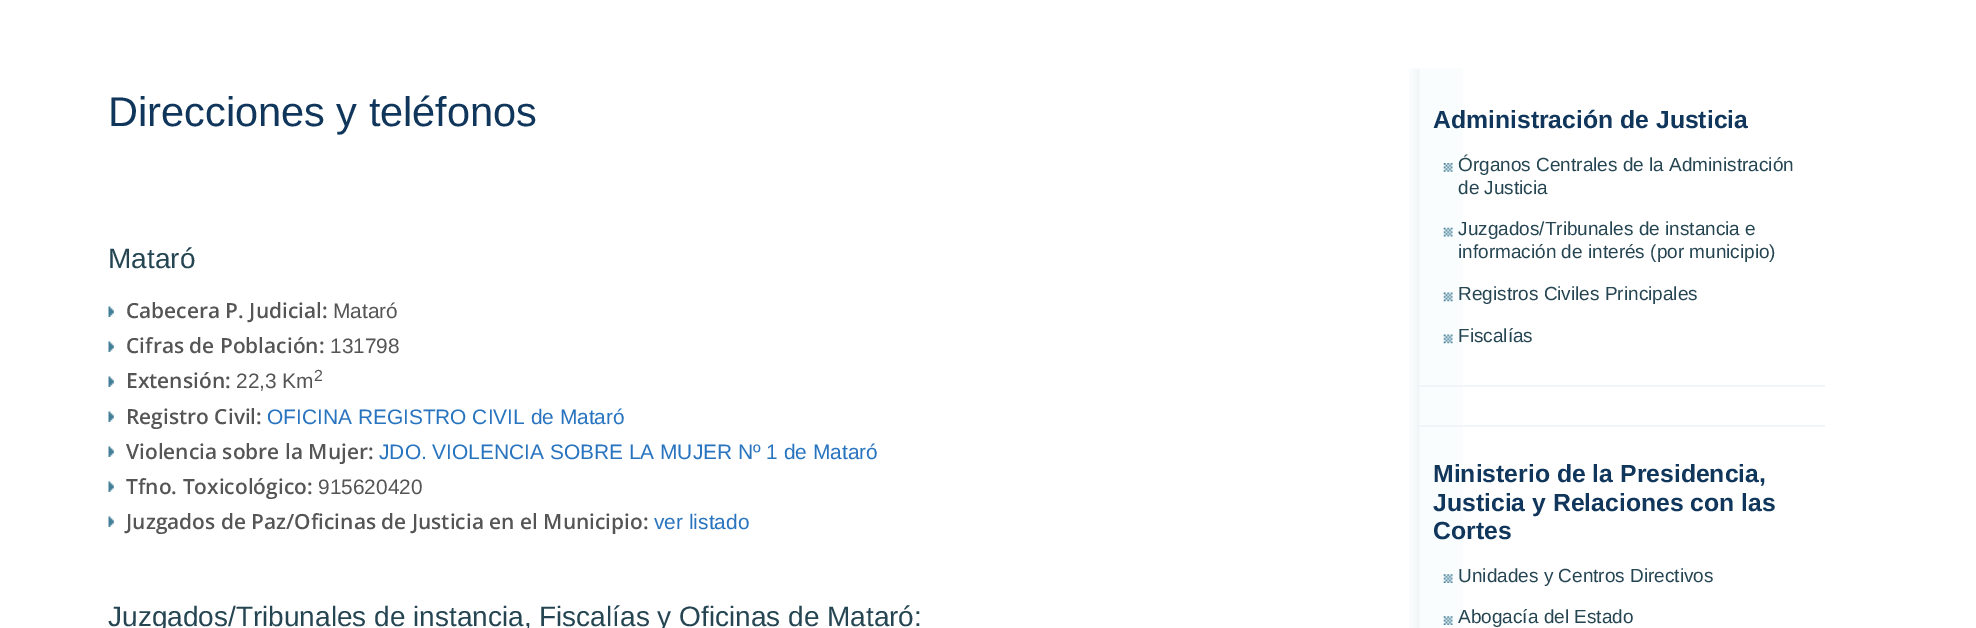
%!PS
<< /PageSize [1976 628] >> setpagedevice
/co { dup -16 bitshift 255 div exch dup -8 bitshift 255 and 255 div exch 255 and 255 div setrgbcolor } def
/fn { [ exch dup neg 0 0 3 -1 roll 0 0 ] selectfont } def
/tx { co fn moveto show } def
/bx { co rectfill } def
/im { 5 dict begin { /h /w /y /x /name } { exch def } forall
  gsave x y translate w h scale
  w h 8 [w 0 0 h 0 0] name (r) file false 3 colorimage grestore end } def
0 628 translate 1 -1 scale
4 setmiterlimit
0 0 1976 628 16#FFFFFF bx
(media/1.raw) 108 306 6 11 im
(media/1.raw) 108 341 6 11 im
(media/1.raw) 108 376 6 11 im
(media/1.raw) 108 411 6 11 im
(media/1.raw) 108 446 6 11 im
(media/1.raw) 108 481 6 11 im
(media/1.raw) 108 516 6 11 im
(media/2.raw) 1409 68 54 560 im
1416 385 409 2 16#F1F5F7 bx
(media/3.raw) 1443 163 10 9 im
(media/4.raw) 1443 227 10 10 im
(media/5.raw) 1443 292 10 10 im
(media/5.raw) 1443 334 10 10 im
1416 425 409 2 16#F1F5F7 bx
(media/6.raw) 1443 574 10 9 im
(media/6.raw) 1443 616 10 9 im
(Direcciones y teléfonos) 108 126 /LiberationSans-Regular 41.5 16#10365C tx
(Mataró) 108 268 /LiberationSans-Regular 28 16#254552 tx
(Cabecera P. Judicial:) 126 318 /OpenSans-SemiBold 20.9 16#555555 tx
(Mataró) 333 318 /LiberationSans-Regular 20.9 16#555555 tx
(Cifras de Población:) 126 353 /OpenSans-SemiBold 20.9 16#555555 tx
(131798) 330 353 /LiberationSans-Regular 20.9 16#555555 tx
(Extensión:) 126 388 /OpenSans-SemiBold 20.9 16#555555 tx
(22,3 Km) 236 388 /LiberationSans-Regular 20.9 16#555555 tx
(2) 314 381 /LiberationSans-Regular 16 16#555555 tx
(Registro Civil:) 126 424 /OpenSans-SemiBold 20.9 16#555555 tx
(OFICINA REGISTRO CIVIL de Mataró) 267 424 /LiberationSans-Regular 20.9 16#2874BF tx
(Violencia sobre la Mujer:) 126 459 /OpenSans-SemiBold 20.9 16#555555 tx
(JDO. VIOLENCIA SOBRE LA MUJER Nº 1 de Mataró) 379 459 /LiberationSans-Regular 20.9 16#2874BF tx
(Tfno. Toxicológico:) 126 494 /OpenSans-SemiBold 20.9 16#555555 tx
(915620420) 318 494 /LiberationSans-Regular 20.9 16#555555 tx
(Juzgados de Paz/Oficinas de Justicia en el Municipio:) 126 529 /OpenSans-SemiBold 20.9 16#555555 tx
(ver listado) 654 529 /LiberationSans-Regular 20.9 16#2874BF tx
(Juzgados/Tribunales de instancia, Fiscalías y Oficinas de Mataró:) 108 626 /LiberationSans-Regular 28 16#254552 tx
(Administración de Justicia) 1433 128 /LiberationSans-Bold 24.75 16#10365C tx
(Órganos Centrales de la Administración) 1458 171 /LiberationSans-Regular 19 16#254552 tx
(de Justicia) 1458 194 /LiberationSans-Regular 19 16#254552 tx
(Juzgados/Tribunales de instancia e) 1458 235 /LiberationSans-Regular 19 16#254552 tx
(información de interés \(por municipio\)) 1458 258 /LiberationSans-Regular 19 16#254552 tx
(Registros Civiles Principales) 1458 300 /LiberationSans-Regular 19 16#254552 tx
(Fiscalías) 1458 342 /LiberationSans-Regular 19 16#254552 tx
(Ministerio de la Presidencia,) 1433 482 /LiberationSans-Bold 24.75 16#10365C tx
(Justicia y Relaciones con las) 1433 511 /LiberationSans-Bold 24.75 16#10365C tx
(Cortes) 1433 539 /LiberationSans-Bold 24.75 16#10365C tx
(Unidades y Centros Directivos) 1458 582 /LiberationSans-Regular 19 16#254552 tx
(Abogacía del Estado) 1458 623 /LiberationSans-Regular 19 16#254552 tx
showpage
